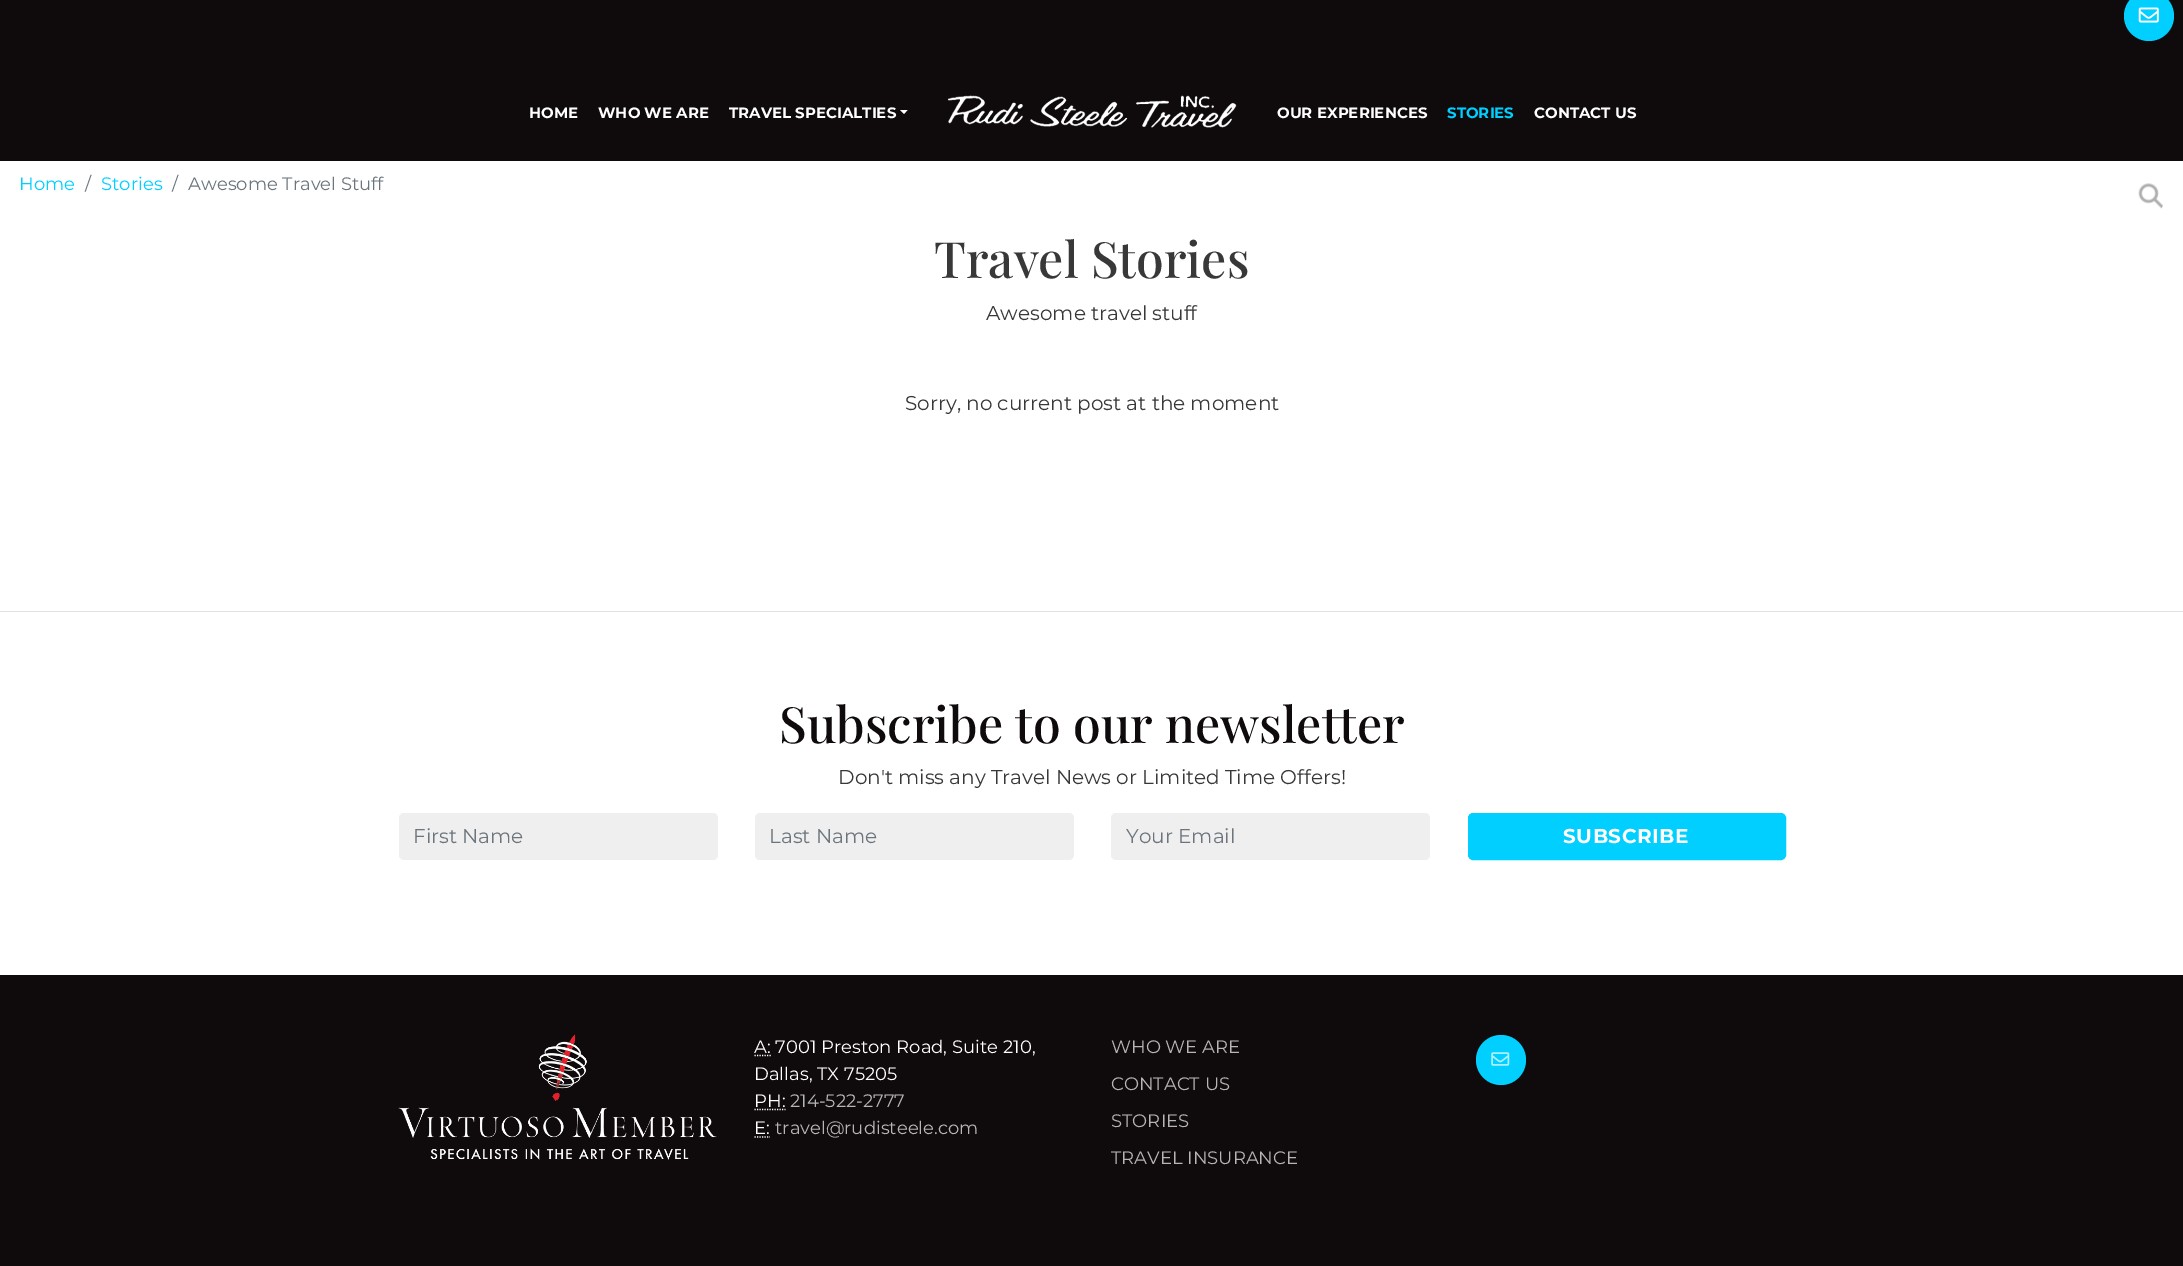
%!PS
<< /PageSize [2183 1266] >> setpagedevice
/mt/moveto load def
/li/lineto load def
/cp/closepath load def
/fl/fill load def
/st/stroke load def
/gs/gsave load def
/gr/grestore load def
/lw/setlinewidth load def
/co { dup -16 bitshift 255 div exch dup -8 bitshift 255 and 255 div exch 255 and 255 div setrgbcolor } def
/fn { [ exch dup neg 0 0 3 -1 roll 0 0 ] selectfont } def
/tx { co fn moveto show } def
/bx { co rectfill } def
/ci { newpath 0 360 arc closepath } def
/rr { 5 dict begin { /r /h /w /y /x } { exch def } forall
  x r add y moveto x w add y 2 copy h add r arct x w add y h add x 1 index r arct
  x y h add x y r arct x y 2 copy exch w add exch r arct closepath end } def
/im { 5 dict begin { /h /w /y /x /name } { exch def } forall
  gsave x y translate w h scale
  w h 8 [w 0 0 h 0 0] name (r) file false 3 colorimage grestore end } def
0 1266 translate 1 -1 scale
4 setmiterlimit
0 0 2183 1266 16#FFFFFF bx
0 0 2183 161 16#0F0A0B bx
16#00CFFF co
2149 16 25 ci fl
(media/1.raw) 2138 7 21 16 im
16#FFFFFF co
900 110 mt 907.5 110 li 904 114 li cp fl
(media/2.raw) 947 95 290 33 im
(media/3.raw) 2138 183 25 26 im
0 611 2183 1 16#DEE2E6 bx
16#EFEFEF co
399 813 319 47 5 rr fl
755 813 319 47 5 rr fl
1111 813 319 47 5 rr fl
16#00CFFF co
1468.5 813.5 317 46 4.5 rr gs fl gr
st
0 975 2183 291 16#0F0A0B bx
(media/4.raw) 398 1034 319 126 im
16#FFFFFF co
1.2 lw
[1.25 1.25] 0 setdash
754.5 1055.5 mt 771 1055.5 li st
754.5 1109.5 mt 785.5 1109.5 li st
754.5 1137 mt 770 1137 li st
16#00CFFF co
1501 1060 25 ci fl
(media/5.raw) 1491 1052 19 14 im
(HOME) 529 118 /Montserrat-Bold 15 16#FFFFFF tx
(WHO WE ARE) 598 118 /Montserrat-Bold 15 16#FFFFFF tx
(TRAVEL SPECIALTIES) 729 118 /Montserrat-Bold 15 16#FFFFFF tx
(OUR EXPERIENCES) 1277 118 /Montserrat-Bold 15 16#FFFFFF tx
(STORIES) 1447 118 /Montserrat-Bold 15 16#00CFFF tx
(CONTACT US) 1534 118 /Montserrat-Bold 15 16#FFFFFF tx
(Home) 19 190 /Montserrat-Regular 18 16#00CFFF tx
(/) 85 190 /Montserrat-Regular 18 16#6C757D tx
(Stories) 101 190 /Montserrat-Regular 18 16#00CFFF tx
(/) 172 190 /Montserrat-Regular 18 16#6C757D tx
(Awesome Travel Stuff) 188 190 /Montserrat-Regular 18 16#6C757D tx
(Travel Stories) 934 278 /PlayfairDisplay-Medium 50 16#383838 tx
(Awesome travel stuff) 986 320 /Montserrat-Regular 20 16#383838 tx
(Sorry, no current post at the moment) 905 410 /Montserrat-Regular 20 16#383838 tx
(Subscribe to our newsletter) 779 743 /PlayfairDisplay-Medium 50 16#0F0A0B tx
(Don't miss any Travel News or Limited Time Offers!) 838 784 /Montserrat-Regular 20 16#383838 tx
(First Name) 413 843 /Montserrat-Regular 20 16#6C757D tx
(Last Name) 769 843 /Montserrat-Regular 20 16#6C757D tx
(Your Email) 1126 843 /Montserrat-Regular 20 16#6C757D tx
/Montserrat-Bold 20 fn
16#FFFFFF co
1563 843 mt .5 0 (SUBSCRIBE) ashow
(A: 7001 Preston Road, Suite 210,) 754 1053 /Montserrat-Regular 18 16#FFFFFF tx
(Dallas, TX 75205) 754 1080 /Montserrat-Regular 18 16#FFFFFF tx
(PH:) 754 1107 /Montserrat-Regular 18 16#FFFFFF tx
(214-522-2777) 790 1107 /Montserrat-Regular 18 16#B7B6B6 tx
(E:) 754 1134 /Montserrat-Regular 18 16#FFFFFF tx
(travel@rudisteele.com) 775 1134 /Montserrat-Regular 18 16#B7B6B6 tx
(WHO WE ARE) 1111 1053 /Montserrat-Regular 18 16#B7B6B6 tx
(CONTACT US) 1111 1090 /Montserrat-Regular 18 16#B7B6B6 tx
(STORIES) 1111 1127 /Montserrat-Regular 18 16#B7B6B6 tx
(TRAVEL INSURANCE) 1111 1164 /Montserrat-Regular 18 16#B7B6B6 tx
showpage
